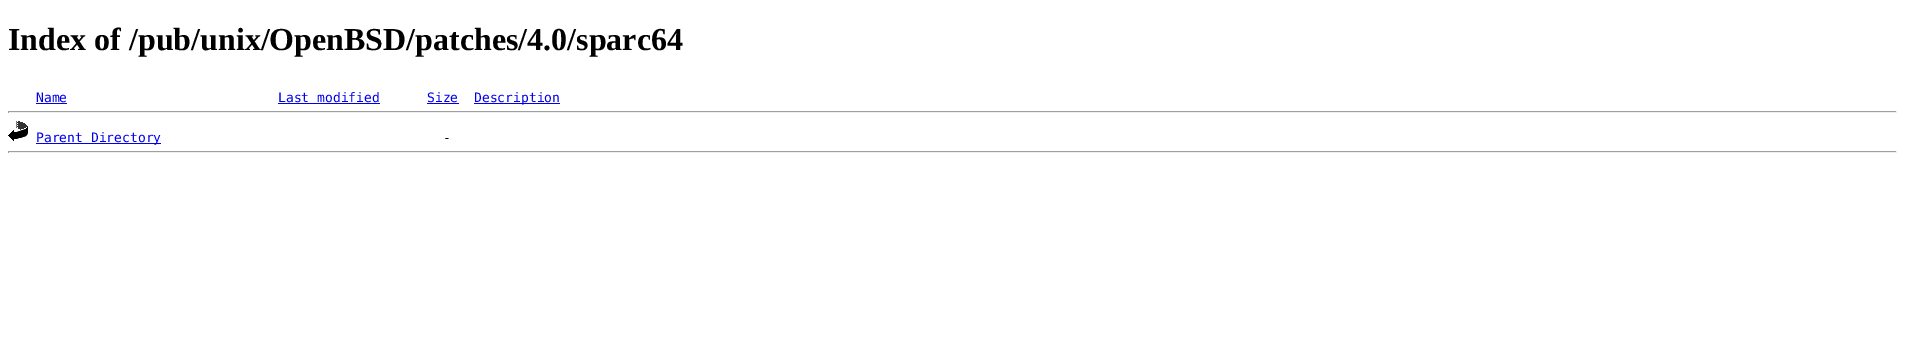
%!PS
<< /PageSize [1905 354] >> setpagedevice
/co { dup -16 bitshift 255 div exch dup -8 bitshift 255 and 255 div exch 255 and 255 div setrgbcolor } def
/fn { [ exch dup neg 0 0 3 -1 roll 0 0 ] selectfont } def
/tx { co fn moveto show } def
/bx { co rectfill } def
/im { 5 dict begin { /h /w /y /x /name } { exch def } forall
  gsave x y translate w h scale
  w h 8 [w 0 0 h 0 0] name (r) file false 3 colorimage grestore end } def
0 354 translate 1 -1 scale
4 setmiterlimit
0 0 1905 354 16#FFFFFF bx
36 103 31 1 16#0000EE bx
278 103 102 1 16#0000EE bx
427 103 32 1 16#0000EE bx
474 103 86 1 16#0000EE bx
8 111 1889 1 16#9F9F9F bx
1896 111 1 2 16#EEEEEE bx
8 112 1889 1 16#EEEEEE bx
8 111 1 2 16#9F9F9F bx
(media/1.raw) 8 121 20 20 im
36 143 125 1 16#0000EE bx
8 151 1889 1 16#9F9F9F bx
1896 151 1 2 16#EEEEEE bx
8 152 1889 1 16#EEEEEE bx
8 151 1 2 16#9F9F9F bx
(Index of /pub/unix/OpenBSD/patches/4.0/sparc64) 8 50 /LiberationSerif-Bold 32 16#000000 tx
(Name) 36 102 /DejaVuSansMono-Regular 13 16#0000EE tx
(Last modified) 278 102 /DejaVuSansMono-Regular 13 16#0000EE tx
(Size) 427 102 /DejaVuSansMono-Regular 13 16#0000EE tx
(Description) 474 102 /DejaVuSansMono-Regular 13 16#0000EE tx
(Parent Directory) 36 142 /DejaVuSansMono-Regular 13 16#0000EE tx
(-) 443 142 /DejaVuSansMono-Regular 13 16#000000 tx
showpage
